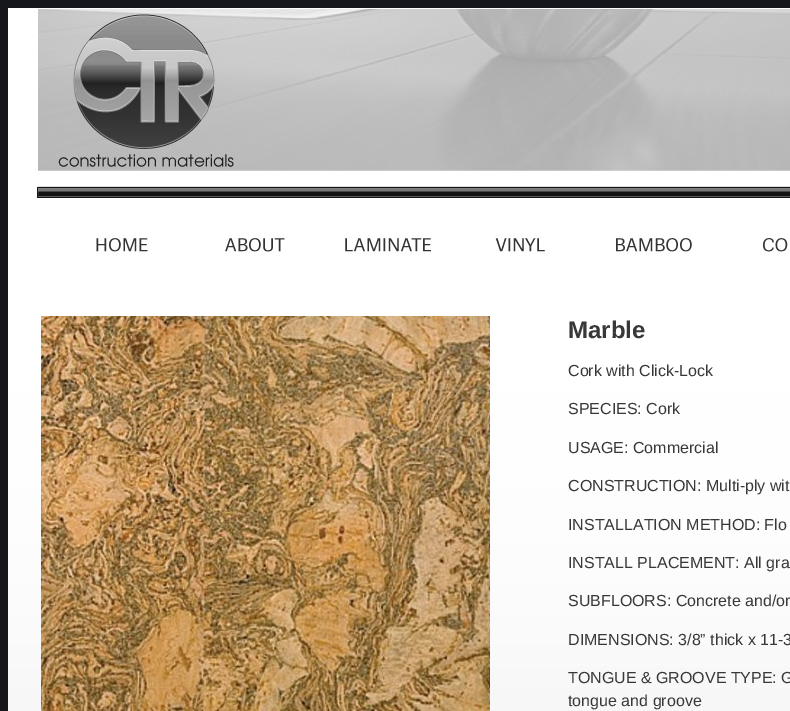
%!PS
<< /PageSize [790 711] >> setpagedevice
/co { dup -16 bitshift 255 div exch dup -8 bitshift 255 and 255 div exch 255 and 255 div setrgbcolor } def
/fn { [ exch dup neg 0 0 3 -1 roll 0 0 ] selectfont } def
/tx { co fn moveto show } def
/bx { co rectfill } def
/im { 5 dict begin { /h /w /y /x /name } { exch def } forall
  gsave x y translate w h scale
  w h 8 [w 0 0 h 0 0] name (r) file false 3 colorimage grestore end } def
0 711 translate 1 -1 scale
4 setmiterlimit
0 0 790 711 16#15171D bx
(media/1.raw) 8 8 782 703 im
(media/2.raw) 96 236 54 21 im
(media/3.raw) 222 236 63 20 im
(media/4.raw) 345 235 86 23 im
(media/5.raw) 495 234 50 18 im
(media/6.raw) 612 234 80 23 im
(media/7.raw) 761 235 27 22 im
(media/8.raw) 41 316 449 395 im
(Marble) 568 338 /LiberationSans-Bold 24 16#383838 tx
(Cork with Click-Lock) 568 376 /LiberationSans-Regular 16 16#383838 tx
(SPECIES: Cork) 568 414 /LiberationSans-Regular 16 16#383838 tx
(USAGE: Commercial) 568 453 /LiberationSans-Regular 16 16#383838 tx
(CONSTRUCTION: Multi-ply wit) 568 491 /LiberationSans-Regular 16 16#383838 tx
(INSTALLATION METHOD: Flo) 568 530 /LiberationSans-Regular 16 16#383838 tx
(INSTALL PLACEMENT: All gra) 568 568 /LiberationSans-Regular 16 16#383838 tx
(SUBFLOORS: Concrete and/or) 568 606 /LiberationSans-Regular 16 16#383838 tx
(DIMENSIONS: 3/8” thick x 11-3) 568 645 /LiberationSans-Regular 16 16#383838 tx
(TONGUE & GROOVE TYPE: G) 568 683 /LiberationSans-Regular 16 16#383838 tx
(tongue and groove) 568 706 /LiberationSans-Regular 16 16#383838 tx
showpage
